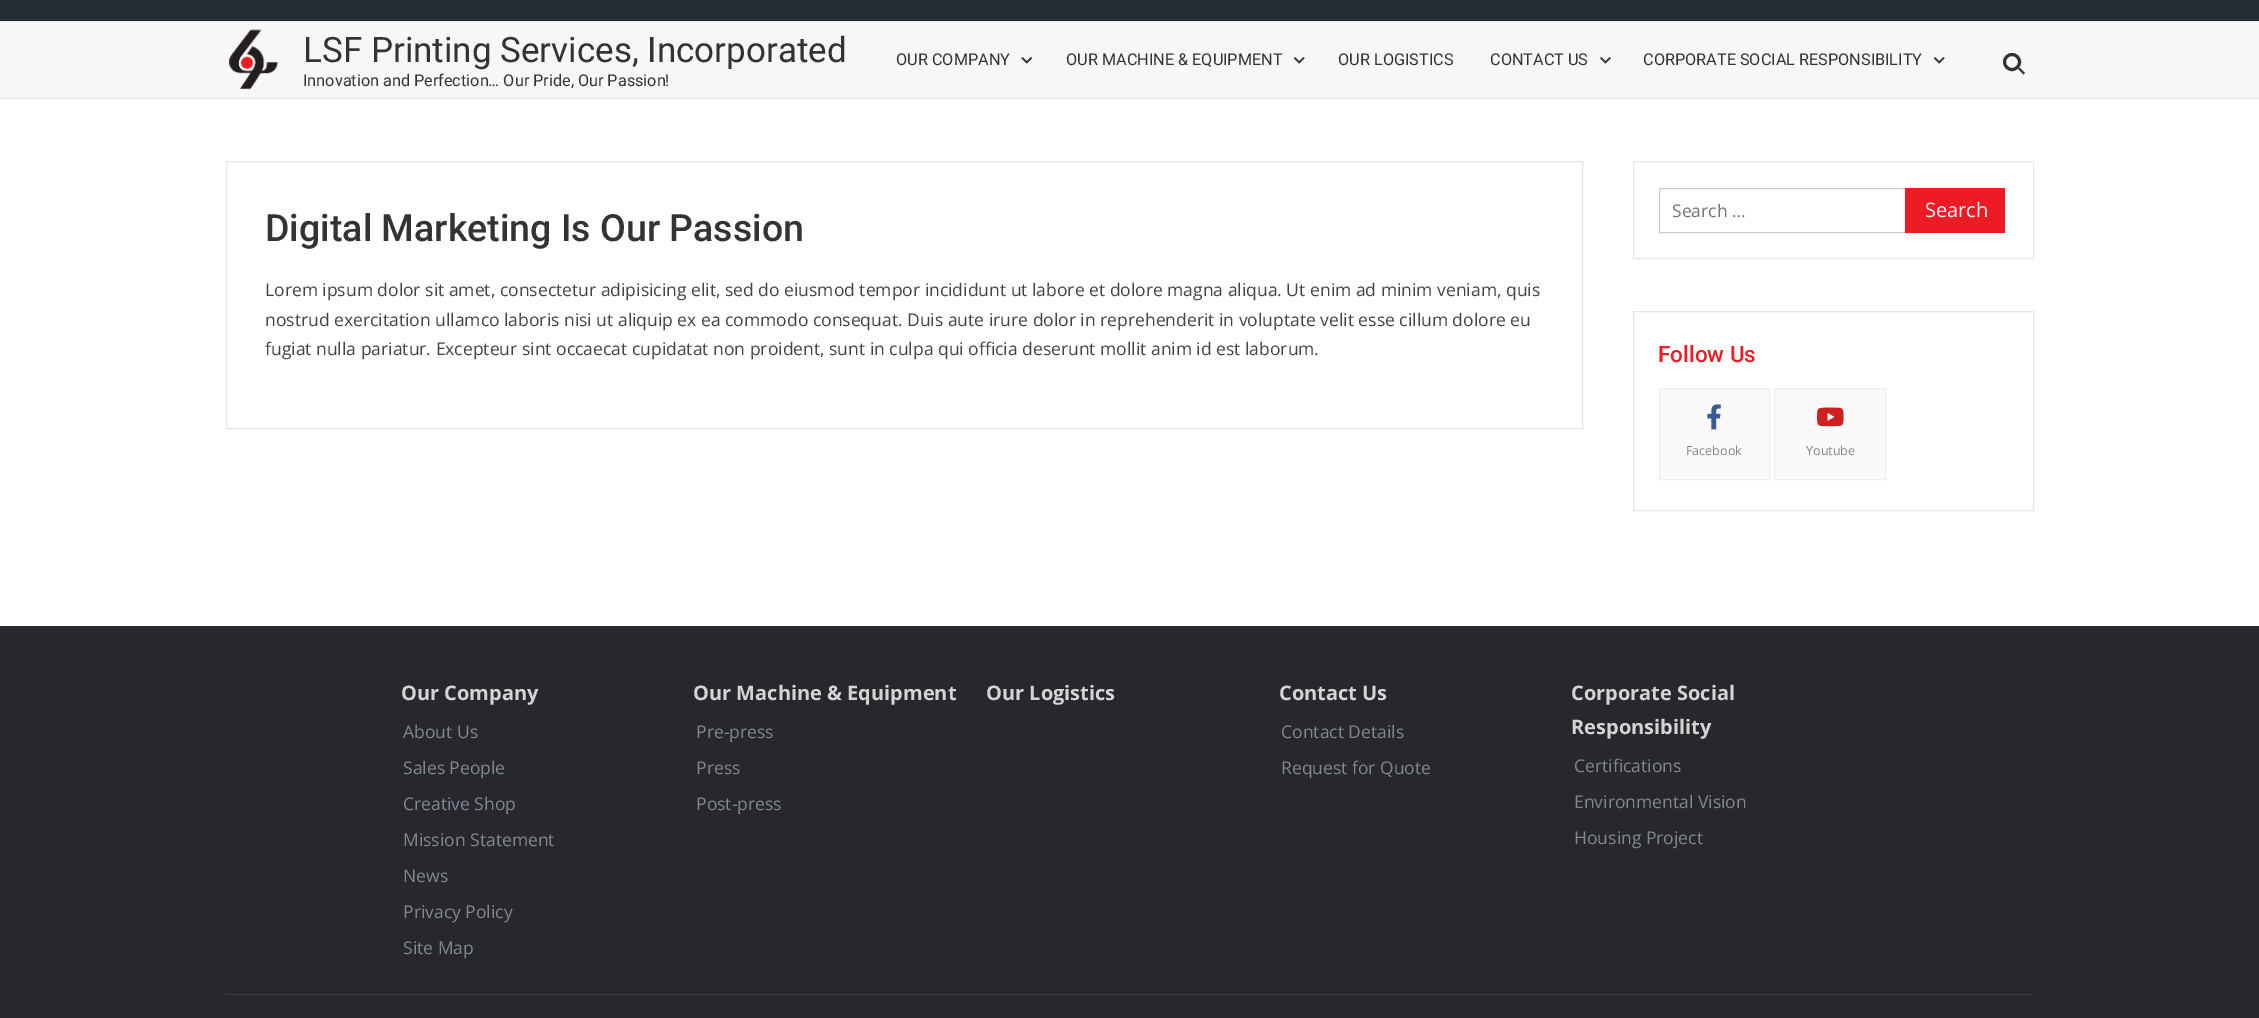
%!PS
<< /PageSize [2259 1018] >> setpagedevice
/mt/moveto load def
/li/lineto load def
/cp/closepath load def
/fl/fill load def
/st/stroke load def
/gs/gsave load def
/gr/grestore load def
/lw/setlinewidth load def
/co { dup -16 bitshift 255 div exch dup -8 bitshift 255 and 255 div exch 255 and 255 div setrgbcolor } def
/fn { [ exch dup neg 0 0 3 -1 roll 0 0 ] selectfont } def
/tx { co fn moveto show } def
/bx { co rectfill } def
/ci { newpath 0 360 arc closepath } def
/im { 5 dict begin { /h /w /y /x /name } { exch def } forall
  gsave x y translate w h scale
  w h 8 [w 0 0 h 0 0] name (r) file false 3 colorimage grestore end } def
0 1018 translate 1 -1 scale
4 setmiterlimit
0 0 2259 1018 16#FFFFFF bx
0 0 2259 21 16#242C35 bx
0 22 2259 76 16#F7F7F7 bx
0 21 2259 1 16#E4E4E4 bx
0 98 2259 1 16#E4E4E4 bx
(media/1.raw) 228 29 50 61 im
(media/2.raw) 1021 57 11 7 im
(media/3.raw) 1293 57 12 7 im
(media/4.raw) 1600 57 11 7 im
(media/3.raw) 1933 57 12 7 im
16#333333 co
3 lw
2012 62 7.5 ci st
2019.5 67.5 mt 2025 73 li 2023.5 74.5 li 2018 69 li cp fl
16#E6E6E6 co
1 lw
226.5 161.5 1356 267 rectstroke
1633.5 161.5 400 97 rectstroke
16#CCCCCC co
1659.5 188.5 246 44 rectstroke
1905 188 100 45 16#ED1C24 bx
16#E6E6E6 co
1633.5 311.5 400 199 rectstroke
16#FAFAFA co
1659.5 388.5 mt 1769.5 388.5 li 1769.5 479.5 li 1659.5 479.5 li cp gs fl gr
16#EEEEEE co
st
(media/5.raw) 1707 404 14 26 im
16#FAFAFA co
1774.5 388.5 mt 1885.5 388.5 li 1885.5 479.5 li 1774.5 479.5 li cp gs fl gr
16#EEEEEE co
st
(media/6.raw) 1817 407 27 20 im
0 626 2259 392 16#27282B bx
226 994 1808 1 16#3D3E40 bx
(LSF Printing Services, Incorporated) 303 62 /Roboto-Regular 35 16#333333 tx
(Innovation and Perfection… Our Pride, Our Passion!) 303 86 /Roboto-Regular 16.25 16#333333 tx
(OUR COMPANY) 896 65 /Roboto-Regular 16.25 16#333333 tx
(OUR MACHINE & EQUIPMENT) 1066 65 /Roboto-Regular 16.25 16#333333 tx
(OUR LOGISTICS) 1338 65 /Roboto-Regular 16.25 16#333333 tx
(CONTACT US) 1490 65 /Roboto-Regular 16.25 16#333333 tx
(CORPORATE SOCIAL RESPONSIBILITY) 1643 65 /Roboto-Regular 16.25 16#333333 tx
(Digital Marketing Is Our Passion) 265 241 /Roboto-Medium 37.5 16#333333 tx
(Lorem ipsum dolor sit amet, consectetur adipisicing elit, sed do eiusmod tempor incididunt ut labore et dolore magna aliqua. Ut enim ad minim veniam, quis) 265 296 /OpenSans-Regular 17.5 16#444444 tx
(nostrud exercitation ullamco laboris nisi ut aliquip ex ea commodo consequat. Duis aute irure dolor in reprehenderit in voluptate velit esse cillum dolore eu) 265 326 /OpenSans-Regular 17.5 16#444444 tx
(fugiat nulla pariatur. Excepteur sint occaecat cupidatat non proident, sunt in culpa qui officia deserunt mollit anim id est laborum.) 265 355 /OpenSans-Regular 17.5 16#444444 tx
(Search …) 1672 217 /OpenSans-Regular 17.5 16#757575 tx
(Search) 1925 217 /OpenSans-Regular 20 16#FFFFFF tx
(Follow Us) 1658 362 /Roboto-Medium 22.5 16#ED1C24 tx
(Facebook) 1686 455 /OpenSans-Regular 12.5 16#838383 tx
(Youtube) 1806 455 /OpenSans-Regular 12.5 16#838383 tx
(Our Company) 401 700 /OpenSans-Bold 20 16#D4D4D4 tx
(About Us) 403 738 /OpenSans-Regular 17.5 16#848790 tx
(Sales People) 403 774 /OpenSans-Regular 17.5 16#848790 tx
(Creative Shop) 403 810 /OpenSans-Regular 17.5 16#848790 tx
(Mission Statement) 403 846 /OpenSans-Regular 17.5 16#848790 tx
(News) 403 882 /OpenSans-Regular 17.5 16#848790 tx
(Privacy Policy) 403 918 /OpenSans-Regular 17.5 16#848790 tx
(Site Map) 403 954 /OpenSans-Regular 17.5 16#848790 tx
(Our Machine & Equipment) 693 700 /OpenSans-Bold 20 16#D4D4D4 tx
(Pre-press) 696 738 /OpenSans-Regular 17.5 16#848790 tx
(Press) 696 774 /OpenSans-Regular 17.5 16#848790 tx
(Post-press) 696 810 /OpenSans-Regular 17.5 16#848790 tx
(Our Logistics) 986 700 /OpenSans-Bold 20 16#D4D4D4 tx
(Contact Us) 1279 700 /OpenSans-Bold 20 16#D4D4D4 tx
(Contact Details) 1281 738 /OpenSans-Regular 17.5 16#848790 tx
(Request for Quote) 1281 774 /OpenSans-Regular 17.5 16#848790 tx
(Corporate Social) 1571 700 /OpenSans-Bold 20 16#D4D4D4 tx
(Responsibility) 1571 734 /OpenSans-Bold 20 16#D4D4D4 tx
(Certifications) 1574 772 /OpenSans-Regular 17.5 16#848790 tx
(Environmental Vision) 1574 808 /OpenSans-Regular 17.5 16#848790 tx
(Housing Project) 1574 844 /OpenSans-Regular 17.5 16#848790 tx
showpage
